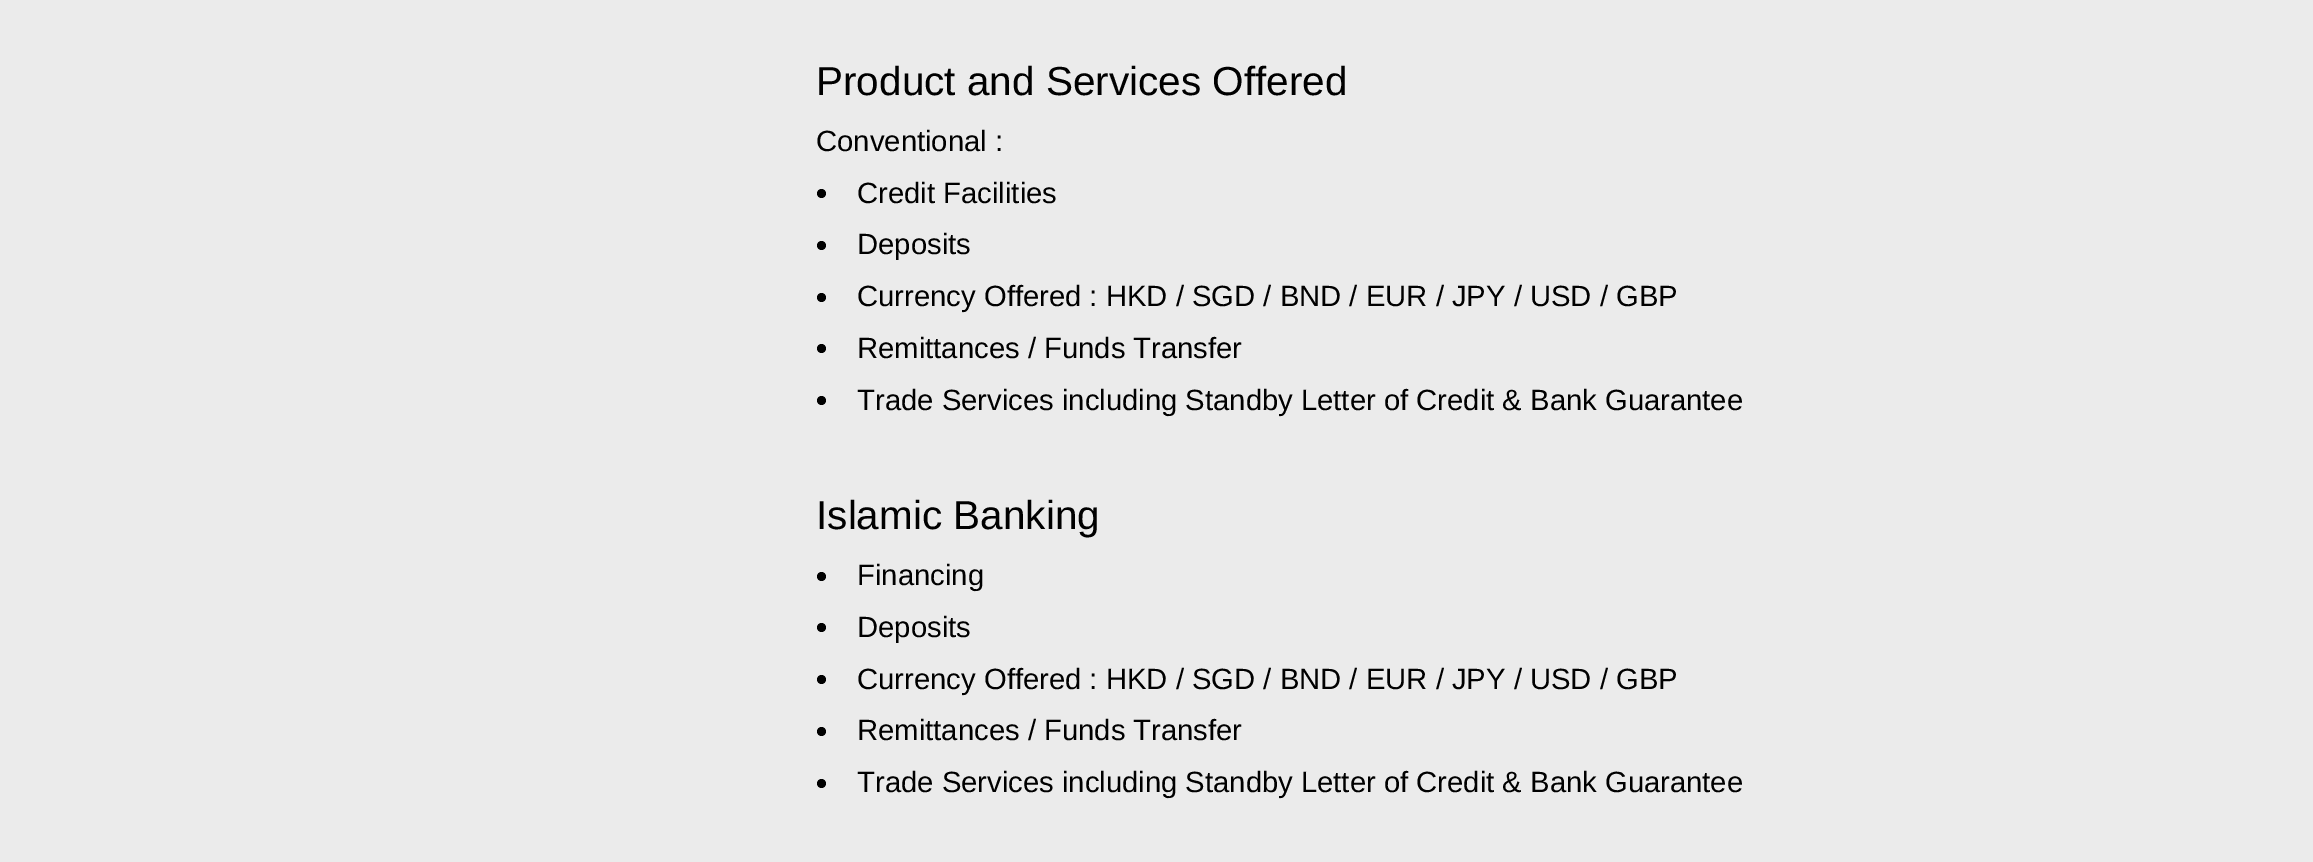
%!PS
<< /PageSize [2313 862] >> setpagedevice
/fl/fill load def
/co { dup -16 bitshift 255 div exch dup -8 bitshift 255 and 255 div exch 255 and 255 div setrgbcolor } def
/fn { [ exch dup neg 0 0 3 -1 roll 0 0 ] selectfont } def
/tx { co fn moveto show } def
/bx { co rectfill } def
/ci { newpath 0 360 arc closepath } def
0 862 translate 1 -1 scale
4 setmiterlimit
0 0 2313 862 16#EBEBEB bx
16#000000 co
821.5 193.5 4.5 ci fl
821.5 245.5 4.5 ci fl
821.5 297.5 4.5 ci fl
821.5 348.5 4.5 ci fl
821.5 400.5 4.5 ci fl
821.5 576.5 4.5 ci fl
821.5 627.5 4.5 ci fl
821.5 679.5 4.5 ci fl
821.5 731.5 4.5 ci fl
821.5 783.5 4.5 ci fl
(Product and Services Offered) 816 95 /LiberationSans-Regular 40.5 16#000000 tx
(Conventional :) 816 151 /LiberationSans-Regular 29.25 16#000000 tx
(Credit Facilities) 857 203 /LiberationSans-Regular 29.25 16#000000 tx
(Deposits) 857 254 /LiberationSans-Regular 29.25 16#000000 tx
(Currency Offered : HKD / SGD / BND / EUR / JPY / USD / GBP) 857 306 /LiberationSans-Regular 29.25 16#000000 tx
(Remittances / Funds Transfer) 857 358 /LiberationSans-Regular 29.25 16#000000 tx
(Trade Services including Standby Letter of Credit & Bank Guarantee) 857 410 /LiberationSans-Regular 29.25 16#000000 tx
(Islamic Banking) 816 529 /LiberationSans-Regular 40.5 16#000000 tx
(Financing) 857 585 /LiberationSans-Regular 29.25 16#000000 tx
(Deposits) 857 637 /LiberationSans-Regular 29.25 16#000000 tx
(Currency Offered : HKD / SGD / BND / EUR / JPY / USD / GBP) 857 689 /LiberationSans-Regular 29.25 16#000000 tx
(Remittances / Funds Transfer) 857 740 /LiberationSans-Regular 29.25 16#000000 tx
(Trade Services including Standby Letter of Credit & Bank Guarantee) 857 792 /LiberationSans-Regular 29.25 16#000000 tx
showpage
